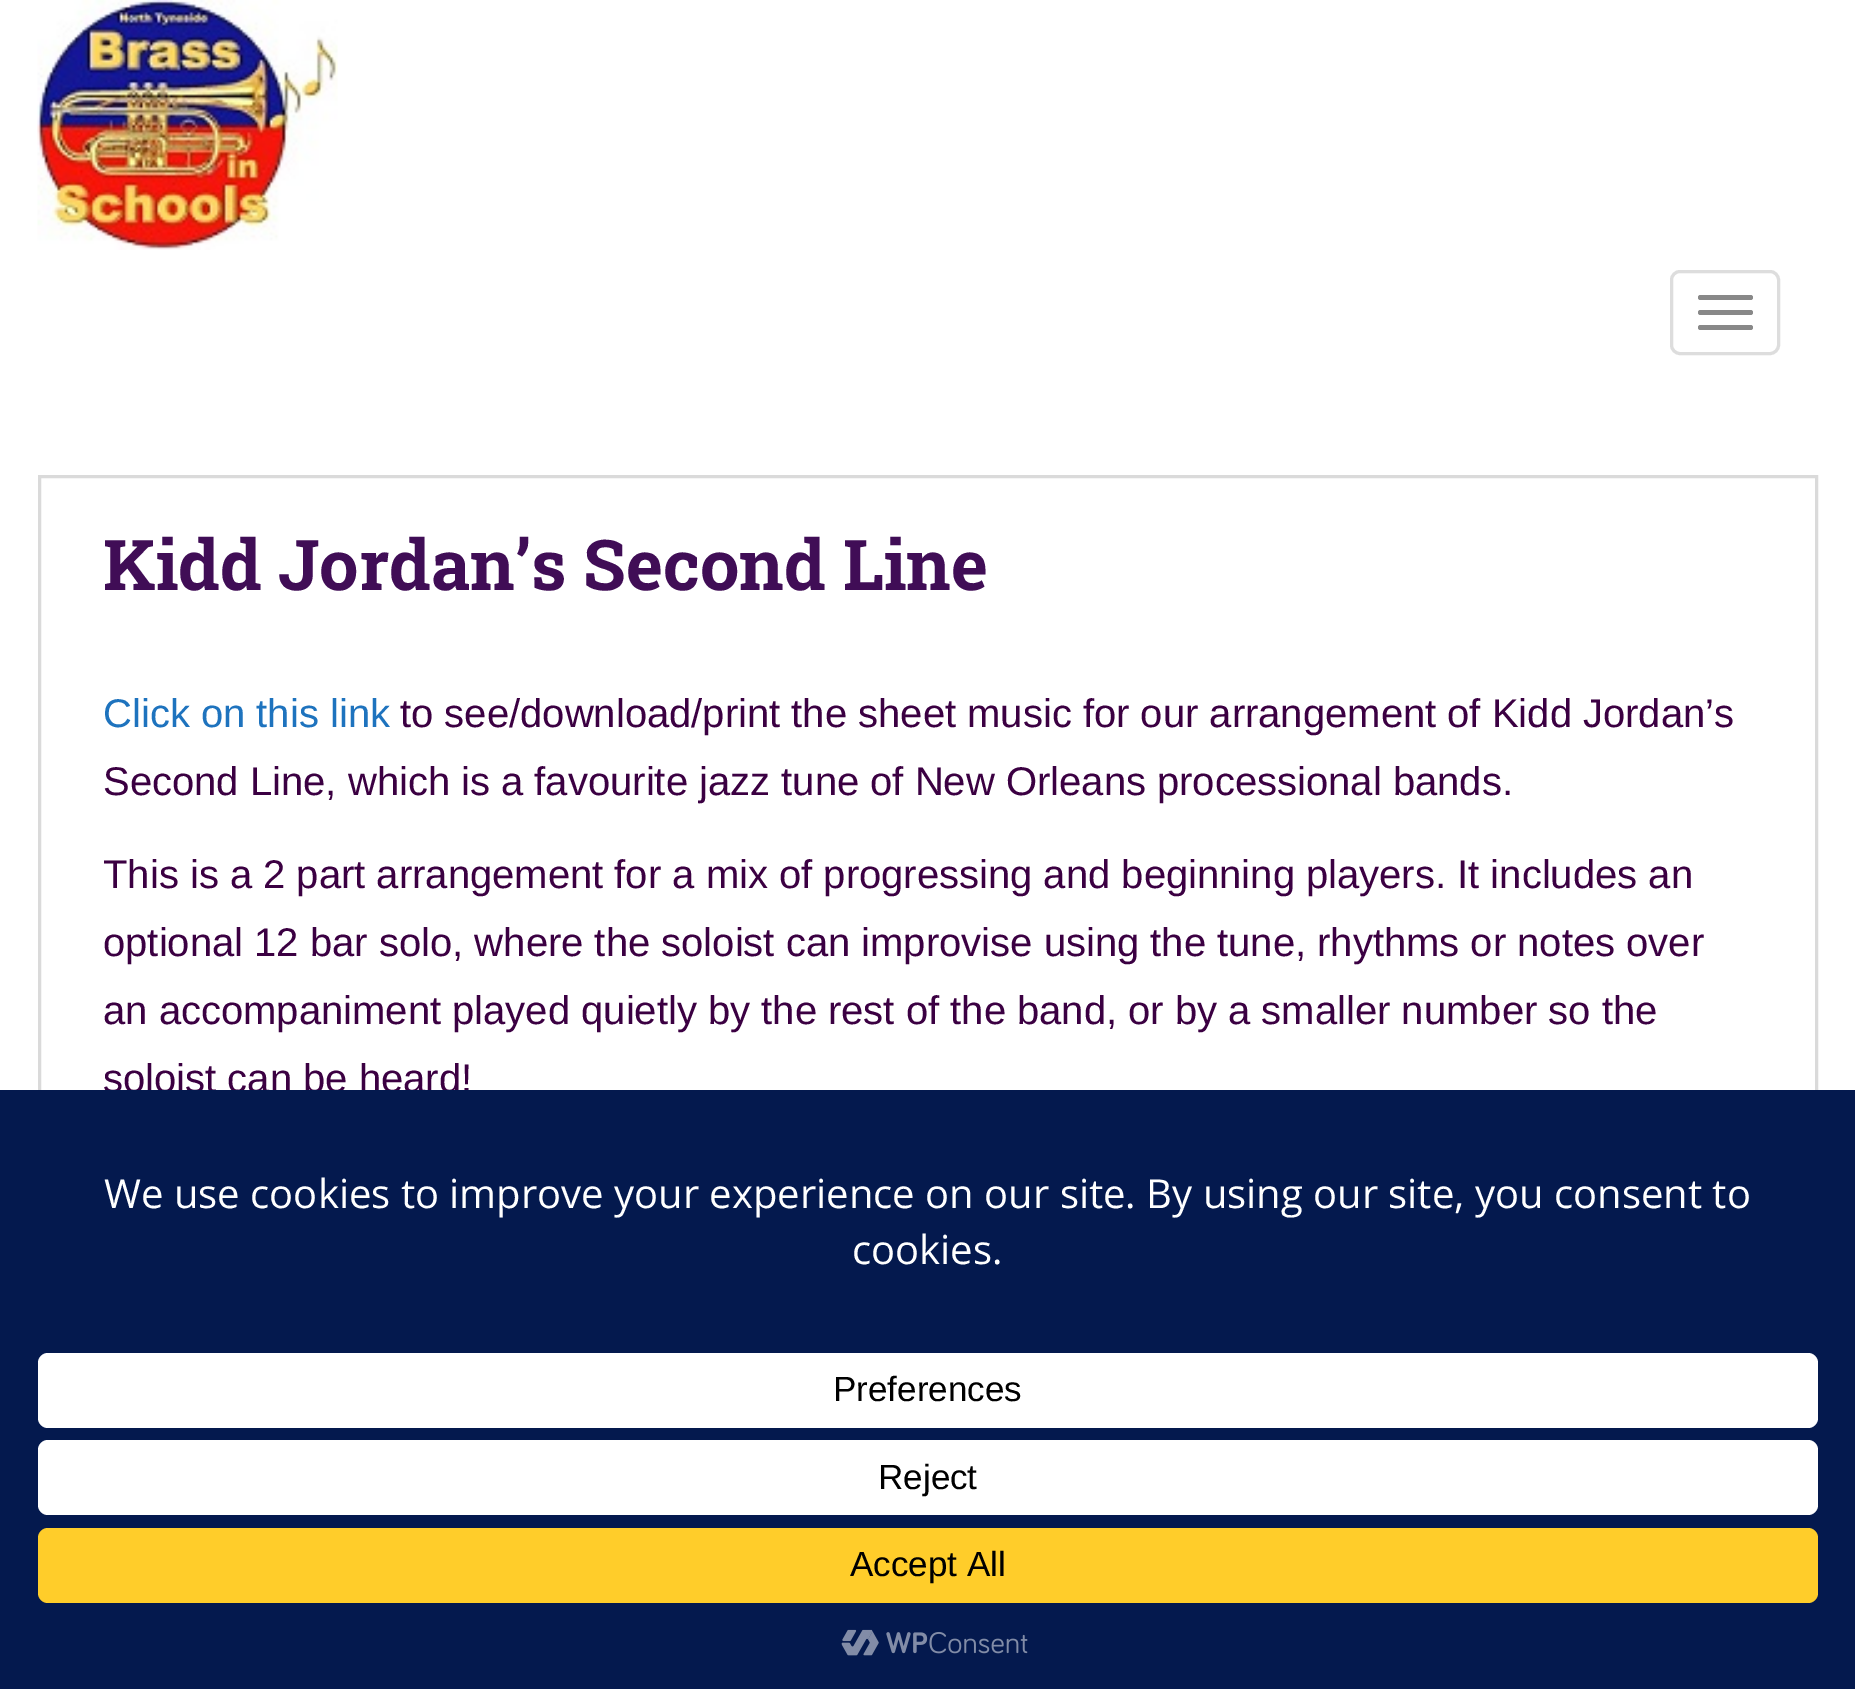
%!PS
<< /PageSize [1855 1689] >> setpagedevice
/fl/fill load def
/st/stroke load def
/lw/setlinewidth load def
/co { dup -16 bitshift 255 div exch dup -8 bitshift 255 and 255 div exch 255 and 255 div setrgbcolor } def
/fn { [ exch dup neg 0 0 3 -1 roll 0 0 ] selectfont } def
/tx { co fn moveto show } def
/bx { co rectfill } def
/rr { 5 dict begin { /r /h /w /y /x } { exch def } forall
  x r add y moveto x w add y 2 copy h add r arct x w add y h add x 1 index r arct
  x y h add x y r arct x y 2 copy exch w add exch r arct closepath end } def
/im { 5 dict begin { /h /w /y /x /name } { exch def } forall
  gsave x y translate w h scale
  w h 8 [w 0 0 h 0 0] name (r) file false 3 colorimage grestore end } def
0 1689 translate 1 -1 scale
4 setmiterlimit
0 0 1855 1689 16#FFFFFF bx
(media/1.raw) 37 0 301 250 im
16#DDDDDD co
3 lw
1671.5 271.5 107 82 8.5 rr st
16#888888 co
1698 295 55 5 2.5 rr fl
1698 310 55 5 2.5 rr fl
1698 325 55 5 2.5 rr fl
16#DADADA co
39.5 476.5 1777 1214 rectstroke
(Kidd Jordan’s Second Line) 103 590 /RobotoSlab-Bold 70 16#400D56 tx
(Click on this link) 103 727 /LiberationSans-Regular 40 16#1E73BE tx
(to see/download/print the sheet music for our arrangement of Kidd Jordan’s) 400 727 /LiberationSans-Regular 40 16#3B0042 tx
(Second Line, which is a favourite jazz tune of New Orleans processional bands.) 103 795 /LiberationSans-Regular 40 16#3B0042 tx
(This is a 2 part arrangement for a mix of progressing and beginning players. It includes an) 103 888 /LiberationSans-Regular 40 16#3B0042 tx
(optional 12 bar solo, where the soloist can improvise using the tune, rhythms or notes over) 103 956 /LiberationSans-Regular 40 16#3B0042 tx
(an accompaniment played quietly by the rest of the band, or by a smaller number so the) 103 1024 /LiberationSans-Regular 40 16#3B0042 tx
(soloist can be heard!) 103 1092 /LiberationSans-Regular 40 16#3B0042 tx
0 1090 1855 599 16#04194E bx
(We use cookies to improve your experience on our site. By using our site, you consent to) 104 1208 /OpenSans-Regular 40 16#FFFFFF tx
(cookies.) 852 1264 /OpenSans-Regular 40 16#FFFFFF tx
38 1353 1780 75 10 rr fl
(Preferences) 833 1401 /LiberationSans-Regular 35 16#000000 tx
16#FFFFFF co
38 1440 1780 75 10 rr fl
(Reject) 878 1489 /LiberationSans-Regular 35 16#000000 tx
16#FFCD2A co
38 1528 1780 75 10 rr fl
(Accept All) 850 1576 /LiberationSans-Regular 35 16#000000 tx
(media/2.raw) 841 1629 187 27 im
showpage
